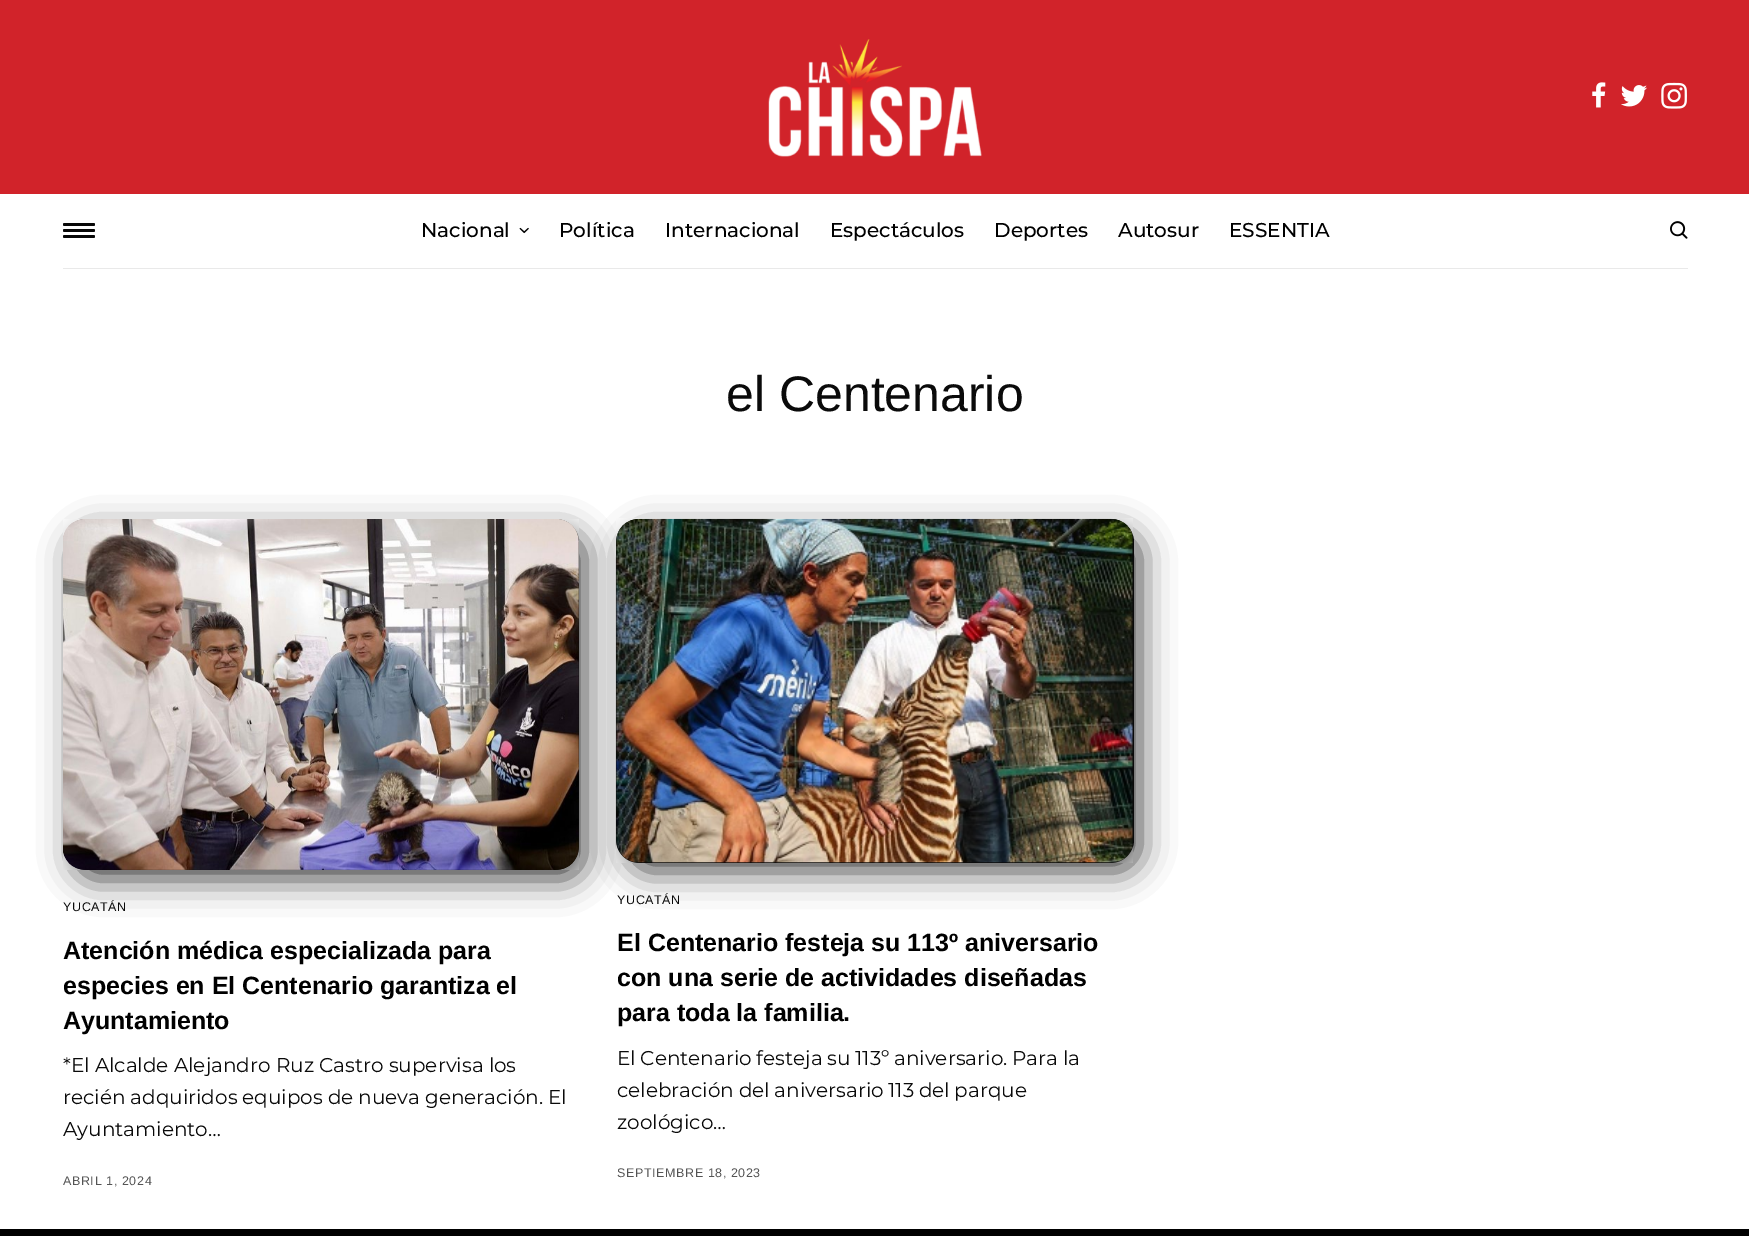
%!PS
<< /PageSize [1749 1236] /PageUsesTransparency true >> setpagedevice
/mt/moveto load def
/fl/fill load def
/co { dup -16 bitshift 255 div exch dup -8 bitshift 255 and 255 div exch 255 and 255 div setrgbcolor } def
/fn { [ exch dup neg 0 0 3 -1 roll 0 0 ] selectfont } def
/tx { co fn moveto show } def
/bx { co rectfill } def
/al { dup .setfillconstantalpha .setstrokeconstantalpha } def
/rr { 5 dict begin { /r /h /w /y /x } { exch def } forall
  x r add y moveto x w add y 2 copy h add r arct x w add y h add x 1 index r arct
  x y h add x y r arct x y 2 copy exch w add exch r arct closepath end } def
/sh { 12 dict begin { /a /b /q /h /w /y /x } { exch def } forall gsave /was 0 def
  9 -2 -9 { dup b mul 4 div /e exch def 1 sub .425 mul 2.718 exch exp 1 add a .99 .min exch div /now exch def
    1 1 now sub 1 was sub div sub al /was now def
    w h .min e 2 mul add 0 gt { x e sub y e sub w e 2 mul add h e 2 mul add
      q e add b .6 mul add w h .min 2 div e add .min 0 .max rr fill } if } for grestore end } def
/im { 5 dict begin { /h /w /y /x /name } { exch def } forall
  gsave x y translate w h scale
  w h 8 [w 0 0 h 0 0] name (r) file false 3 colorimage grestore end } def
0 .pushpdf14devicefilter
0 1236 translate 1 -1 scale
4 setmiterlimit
0 0 1749 1236 16#FFFFFF bx
0 0 1749 194 16#D1232A bx
(media/1.raw) 768 39 214 118 im
(media/2.raw) 1592 82 14 26 im
(media/3.raw) 1621 85 26 22 im
(media/4.raw) 1661 82 26 27 im
63 268 1625 1 16#E9E9E9 bx
16#080808 co
63 223 32 3 1.5 rr fl
63 229 32 3 1.5 rr fl
63 235 32 3 1.5 rr fl
(media/5.raw) 519 227 10 7 im
(media/6.raw) 1670 221 18 18 im
16#000000 co
74 533 511 346 20 17 .75 sh
16#0A0A0A co
63 519 516 351 23 rr fl
(media/7.raw) 63 519 516 351 im
16#000000 co
628 533 512 338 20 17 .75 sh
16#0A0A0A co
616 519 518 344 23 rr fl
(media/8.raw) 616 518 517 345 im
0 1229 1749 7 16#000000 bx
(Nacional) 421 237 /Montserrat-Medium 20 16#000000 tx
(Política) 559 237 /Montserrat-Medium 20 16#000000 tx
(Internacional) 665 237 /Montserrat-Medium 20 16#000000 tx
(Espectáculos) 830 237 /Montserrat-Medium 20 16#000000 tx
(Deportes) 994 237 /Montserrat-Medium 20 16#000000 tx
(Autosur) 1118 237 /Montserrat-Medium 20 16#000000 tx
(ESSENTIA) 1229 237 /Montserrat-Medium 20 16#000000 tx
(el Centenario) 726 411 /LiberationSans-Regular 50 16#0A0A0A tx
/LiberationSans-Regular 12.5 fn
63 911 mt .6 0 (YUCATÁN) ashow
(Atención médica especializada para) 63 959 /LiberationSans-Bold 25 16#000000 tx
(especies en El Centenario garantiza el) 63 994 /LiberationSans-Bold 25 16#000000 tx
(Ayuntamiento) 63 1029 /LiberationSans-Bold 25 16#000000 tx
(*El Alcalde Alejandro Ruz Castro supervisa los) 63 1072 /Montserrat-Regular 20 16#0A0A0A tx
63 1104 mt -.25 0 32 (recién adquiridos equipos de nueva generación. El) widthshow
(Ayuntamiento…) 63 1136 /Montserrat-Regular 20 16#0A0A0A tx
/LiberationSans-Regular 12.5 fn
16#545454 co
63 1185 mt .6 0 (ABRIL 1, 2024) ashow
16#0A0A0A co
617 904 mt .6 0 (YUCATÁN) ashow
(El Centenario festeja su 113º aniversario) 617 951 /LiberationSans-Bold 25 16#000000 tx
(con una serie de actividades diseñadas) 617 986 /LiberationSans-Bold 25 16#000000 tx
(para toda la familia.) 617 1021 /LiberationSans-Bold 25 16#000000 tx
/Montserrat-Regular 20 fn
16#0A0A0A co
617 1065 mt -.5 0 32 (El Centenario festeja su 113º aniversario. Para la) widthshow
617 1097 mt -.5 0 32 (celebración del aniversario 113 del parque) widthshow
(zoológico…) 617 1129 /Montserrat-Regular 20 16#0A0A0A tx
/LiberationSans-Regular 12.5 fn
16#545454 co
617 1177 mt .6 0 (SEPTIEMBRE 18, 2023) ashow
.poppdf14devicefilter showpage
